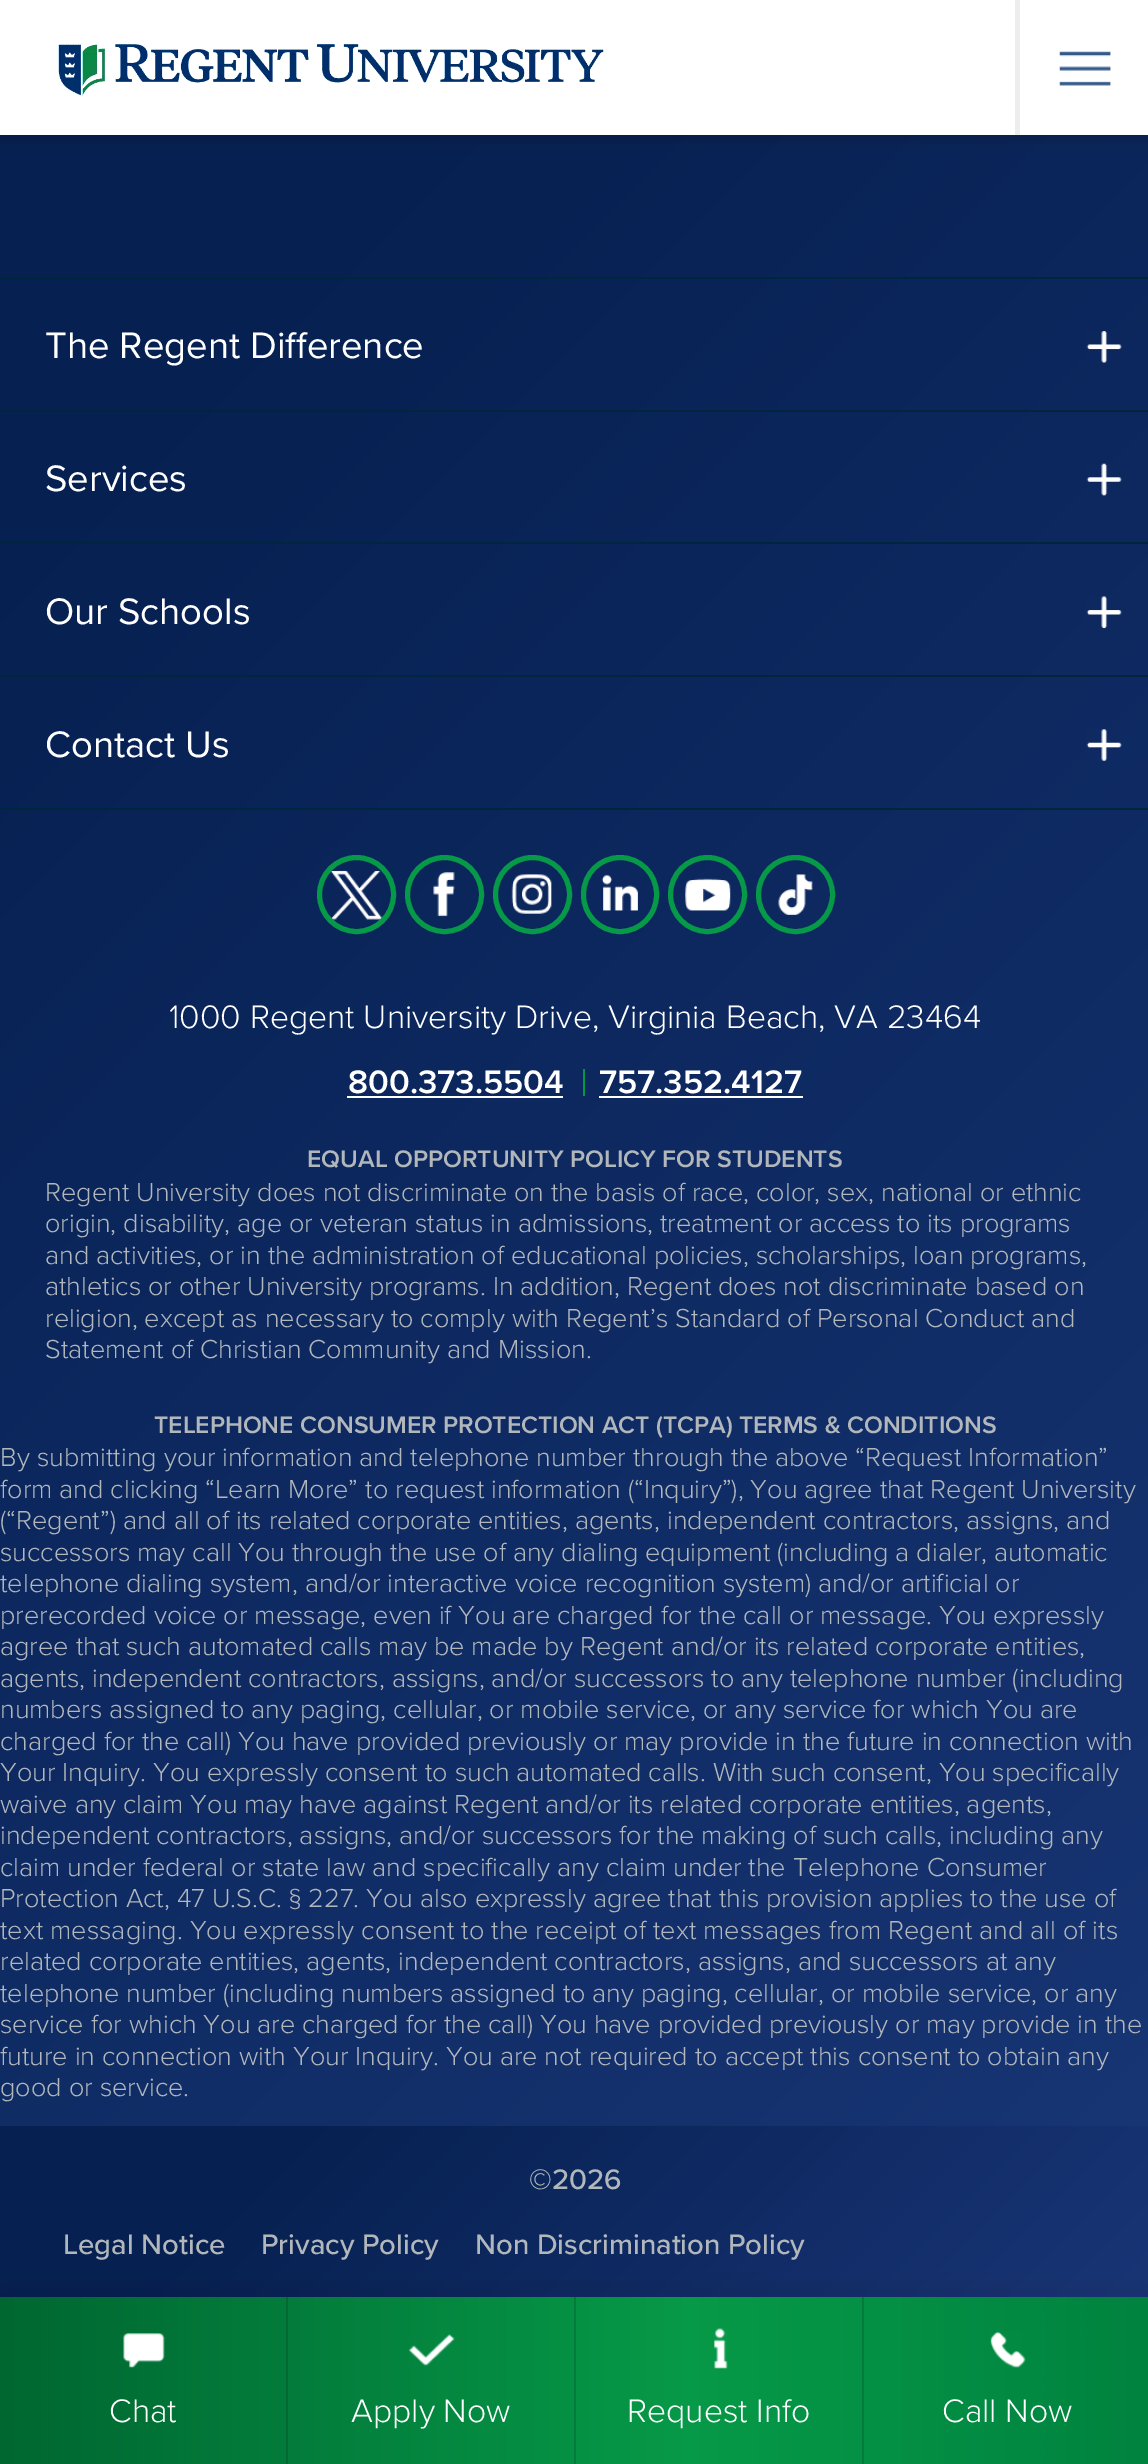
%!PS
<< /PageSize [1148 2464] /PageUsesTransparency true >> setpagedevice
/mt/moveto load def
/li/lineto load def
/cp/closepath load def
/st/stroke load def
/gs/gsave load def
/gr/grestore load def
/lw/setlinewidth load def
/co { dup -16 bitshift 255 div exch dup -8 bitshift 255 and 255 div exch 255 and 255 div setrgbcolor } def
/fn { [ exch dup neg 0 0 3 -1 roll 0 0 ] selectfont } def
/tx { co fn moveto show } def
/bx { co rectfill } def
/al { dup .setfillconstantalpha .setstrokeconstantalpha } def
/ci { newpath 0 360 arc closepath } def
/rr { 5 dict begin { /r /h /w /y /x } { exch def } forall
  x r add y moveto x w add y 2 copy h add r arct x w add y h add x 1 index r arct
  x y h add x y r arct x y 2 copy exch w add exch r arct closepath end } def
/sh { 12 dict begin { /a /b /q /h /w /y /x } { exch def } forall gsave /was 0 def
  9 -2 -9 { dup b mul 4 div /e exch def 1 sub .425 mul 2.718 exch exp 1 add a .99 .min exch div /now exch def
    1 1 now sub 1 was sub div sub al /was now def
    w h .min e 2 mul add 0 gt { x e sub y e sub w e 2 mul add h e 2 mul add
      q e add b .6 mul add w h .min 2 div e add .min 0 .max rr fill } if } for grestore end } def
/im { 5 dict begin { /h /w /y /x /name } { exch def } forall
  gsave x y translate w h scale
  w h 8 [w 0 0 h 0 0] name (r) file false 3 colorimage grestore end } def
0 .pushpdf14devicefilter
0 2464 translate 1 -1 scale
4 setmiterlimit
0 0 1148 2464 16#FFFFFF bx
gs 0 135 mt 1148 135 li 1148 2126 li 0 2126 li cp clip newpath
<< /ShadingType 2 /ColorSpace /DeviceRGB /Coords [-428 167 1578 2173] /Extend [true true] /Function << /FunctionType 3 /Domain [0 1] /Functions [<< /FunctionType 2 /Domain [0 1] /C0 [.024 .125 .318] /C1 [.024 .125 .318] /N 1 >> << /FunctionType 2 /Domain [0 1] /C0 [.024 .125 .318] /C1 [.106 .22 .478] /N 1 >>] /Bounds [.2] /Encode [0 1 0 1] >> >> shfill gr
16#000000 co
0 5 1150 135 0 5.5 .15 sh
0 0 1148 135 16#FFFFFF bx
(media/1.raw) 58 44 546 52 im
1015 0 5 135 16#ECEDED bx
(media/2.raw) 1059 51 52 35 im
0 277 1148 2 16#00263E bx
0 410 1148 2 16#00263E bx
(media/3.raw) 1086 331 36 32 im
0 542 1148 2 16#00263E bx
(media/4.raw) 1086 463 36 33 im
0 675 1148 2 16#00263E bx
(media/5.raw) 1086 596 36 33 im
0 808 1148 2 16#00263E bx
(media/6.raw) 1086 729 36 32 im
(media/7.raw) 330 870 53 50 im
16#069948 co
5 lw
356.5 894.5 37 ci st
(media/8.raw) 433 872 22 45 im
444.5 894.5 37 ci st
(media/9.raw) 511 874 41 40 im
532.5 894.5 37 ci st
(media/10.raw) 601 874 37 37 im
583.5 857.5 73 74 36.5 rr st
(media/11.raw) 685 878 46 33 im
707.5 894.5 37 ci st
(media/12.raw) 778 874 35 41 im
795.5 894.5 37 ci st
347 1096 216 2 16#FFFFFF bx
583 1069 2 27 16#009A44 bx
599 1096 204 2 16#FFFFFF bx
gs 0 2126 mt 1148 2126 li 1148 2297 li 0 2297 li cp clip newpath
<< /ShadingType 2 /ColorSpace /DeviceRGB /Coords [211 1915 939 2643] /Extend [true true] /Function << /FunctionType 3 /Domain [0 1] /Functions [<< /FunctionType 2 /Domain [0 1] /C0 [.024 .125 .318] /C1 [.024 .125 .318] /N 1 >> << /FunctionType 2 /Domain [0 1] /C0 [.024 .125 .318] /C1 [.106 .22 .478] /N 1 >>] /Bounds [.2] /Encode [0 1 0 1] >> >> shfill gr
16#000000 co
0 2293 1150 169 0 17 .1 sh
gs 0 2297 mt 1148 2297 li 1148 2464 li 0 2464 li cp clip newpath
<< /ShadingType 2 /ColorSpace /DeviceRGB /Coords [0 2382 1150 2382] /Extend [true true] /Function << /FunctionType 3 /Domain [0 1] /Functions [<< /FunctionType 2 /Domain [0 1] /C0 [0 .404 .192] /C1 [.024 .6 .282] /N 1 >> << /FunctionType 2 /Domain [0 1] /C0 [.024 .6 .282] /C1 [0 .514 .247] /N 1 >>] /Bounds [.6] /Encode [0 1 0 1] >> >> shfill gr
(media/13.raw) 123 2333 42 35 im
286 2297 2 167 16#026932 bx
(media/14.raw) 409 2334 46 32 im
574 2297 2 167 16#047B3A bx
(media/15.raw) 714 2328 14 41 im
862 2297 2 167 16#037B3B bx
(media/16.raw) 990 2331 36 37 im
(The Regent Difference) 45 358 /ProximaNova-Regular 38.25 16#FFFFFF tx
(Services) 45 491 /ProximaNova-Regular 38.25 16#FFFFFF tx
(Our Schools) 45 624 /ProximaNova-Regular 38.25 16#FFFFFF tx
(Contact Us) 45 757 /ProximaNova-Regular 38.25 16#FFFFFF tx
(1000 Regent University Drive, Virginia Beach, VA 23464) 169 1028 /ProximaNova-Light 33.75 16#FFFFFF tx
(800.373.5504) 348 1093 /ProximaNova-SemiBold 33.75 16#FFFFFF tx
(757.352.4127) 599 1093 /ProximaNova-SemiBold 33.75 16#FFFFFF tx
(EQUAL OPPORTUNITY POLICY FOR STUDENTS) 307 1167 /ProximaNova-SemiBold 24.75 16#B2B7BB tx
(Regent University does not discriminate on the basis of race, color, sex, national or ethnic) 45 1201 /ProximaNova-Light 27 16#B2B7BB tx
(origin, disability, age or veteran status in admissions, treatment or access to its programs) 45 1232 /ProximaNova-Light 27 16#B2B7BB tx
(and activities, or in the administration of educational policies, scholarships, loan programs,) 45 1264 /ProximaNova-Light 27 16#B2B7BB tx
(athletics or other University programs. In addition, Regent does not discriminate based on) 45 1295 /ProximaNova-Light 27 16#B2B7BB tx
(religion, except as necessary to comply with Regent’s Standard of Personal Conduct and) 45 1327 /ProximaNova-Light 27 16#B2B7BB tx
(Statement of Christian Community and Mission.) 45 1358 /ProximaNova-Light 27 16#B2B7BB tx
(TELEPHONE CONSUMER PROTECTION ACT \(TCPA\) TERMS & CONDITIONS) 154 1433 /ProximaNova-SemiBold 24.75 16#B2B7BB tx
(By submitting your information and telephone number through the above “Request Information”) 0 1466 /ProximaNova-Light 27 16#B2B7BB tx
(form and clicking “Learn More” to request information \(“Inquiry”\), You agree that Regent University) 0 1498 /ProximaNova-Light 27 16#B2B7BB tx
(\(“Regent”\) and all of its related corporate entities, agents, independent contractors, assigns, and) 0 1529 /ProximaNova-Light 27 16#B2B7BB tx
(successors may call You through the use of any dialing equipment \(including a dialer, automatic) 0 1561 /ProximaNova-Light 27 16#B2B7BB tx
(telephone dialing system, and/or interactive voice recognition system\) and/or artificial or) 0 1592 /ProximaNova-Light 27 16#B2B7BB tx
(prerecorded voice or message, even if You are charged for the call or message. You expressly) 0 1624 /ProximaNova-Light 27 16#B2B7BB tx
(agree that such automated calls may be made by Regent and/or its related corporate entities,) 0 1655 /ProximaNova-Light 27 16#B2B7BB tx
(agents, independent contractors, assigns, and/or successors to any telephone number \(including) 0 1687 /ProximaNova-Light 27 16#B2B7BB tx
(numbers assigned to any paging, cellular, or mobile service, or any service for which You are) 0 1718 /ProximaNova-Light 27 16#B2B7BB tx
(charged for the call\) You have provided previously or may provide in the future in connection with) 0 1750 /ProximaNova-Light 27 16#B2B7BB tx
(Your Inquiry. You expressly consent to such automated calls. With such consent, You specifically) 0 1781 /ProximaNova-Light 27 16#B2B7BB tx
(waive any claim You may have against Regent and/or its related corporate entities, agents,) 0 1813 /ProximaNova-Light 27 16#B2B7BB tx
(independent contractors, assigns, and/or successors for the making of such calls, including any) 0 1844 /ProximaNova-Light 27 16#B2B7BB tx
(claim under federal or state law and specifically any claim under the Telephone Consumer) 0 1876 /ProximaNova-Light 27 16#B2B7BB tx
(Protection Act, 47 U.S.C. § 227. You also expressly agree that this provision applies to the use of) 0 1907 /ProximaNova-Light 27 16#B2B7BB tx
(text messaging. You expressly consent to the receipt of text messages from Regent and all of its) 0 1939 /ProximaNova-Light 27 16#B2B7BB tx
(related corporate entities, agents, independent contractors, assigns, and successors at any) 0 1970 /ProximaNova-Light 27 16#B2B7BB tx
(telephone number \(including numbers assigned to any paging, cellular, or mobile service, or any) 0 2002 /ProximaNova-Light 27 16#B2B7BB tx
(service for which You are charged for the call\) You have provided previously or may provide in the) 0 2033 /ProximaNova-Light 27 16#B2B7BB tx
(future in connection with Your Inquiry. You are not required to accept this consent to obtain any) 0 2065 /ProximaNova-Light 27 16#B2B7BB tx
(good or service.) 0 2096 /ProximaNova-Light 27 16#B2B7BB tx
(©2026) 529 2189 /ProximaNova-Medium 29.25 16#B2B7BB tx
(Legal Notice) 63 2254 /ProximaNova-Medium 29.25 16#B2B7BB tx
(Privacy Policy) 261 2254 /ProximaNova-Medium 29.25 16#B2B7BB tx
(Non Discrimination Policy) 475 2254 /ProximaNova-Medium 29.25 16#B2B7BB tx
(Chat) 109 2422 /ProximaNova-Light 33.75 16#FFFFFF tx
(Apply Now) 351 2422 /ProximaNova-Light 33.75 16#FFFFFF tx
(Request Info) 627 2422 /ProximaNova-Light 33.75 16#FFFFFF tx
(Call Now) 942 2422 /ProximaNova-Light 33.75 16#FFFFFF tx
.poppdf14devicefilter showpage
